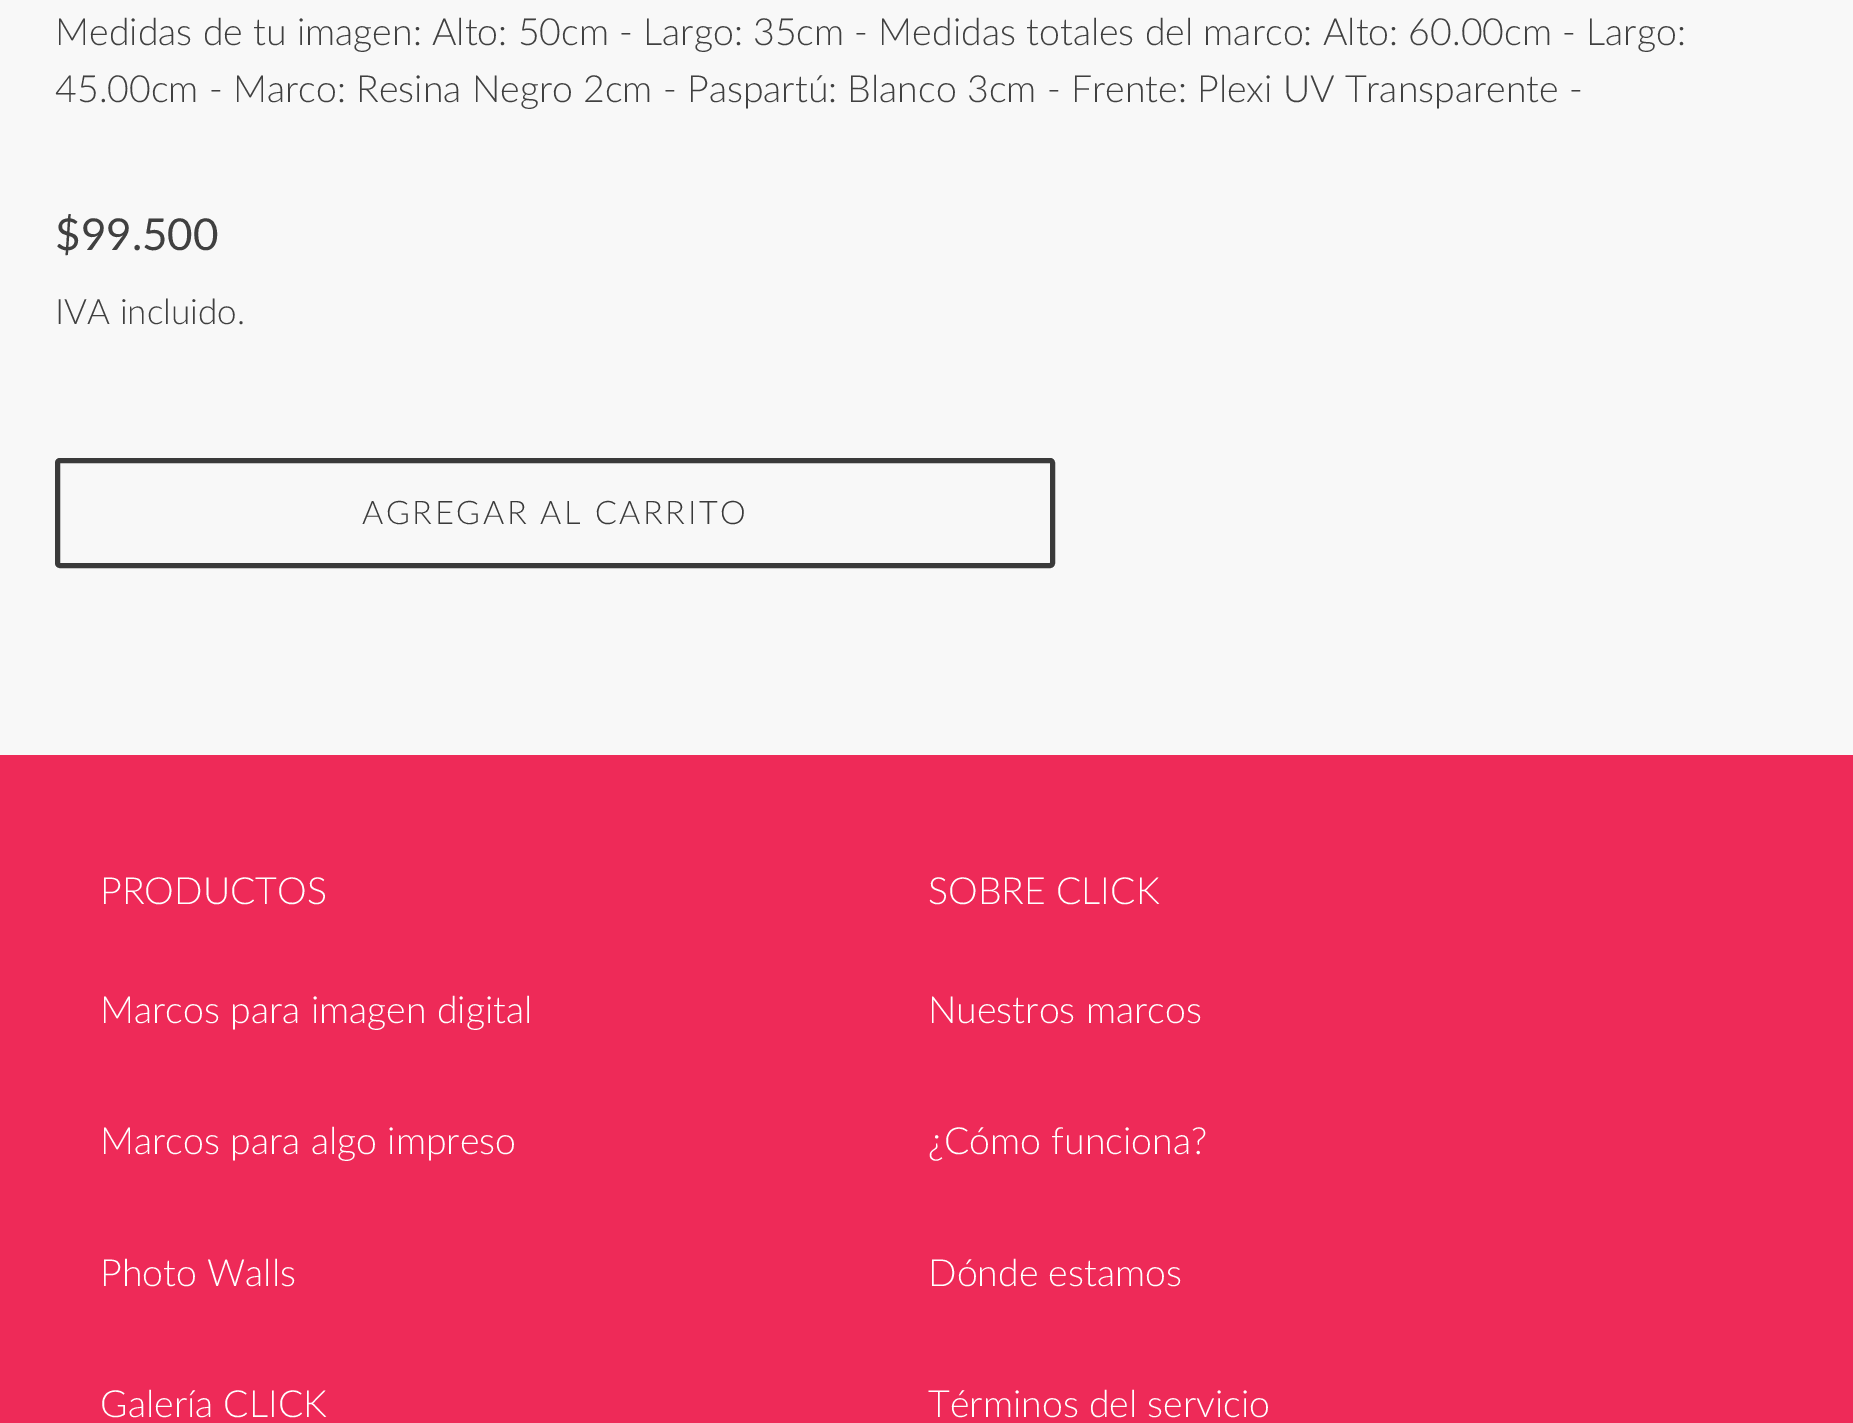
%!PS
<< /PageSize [1853 1423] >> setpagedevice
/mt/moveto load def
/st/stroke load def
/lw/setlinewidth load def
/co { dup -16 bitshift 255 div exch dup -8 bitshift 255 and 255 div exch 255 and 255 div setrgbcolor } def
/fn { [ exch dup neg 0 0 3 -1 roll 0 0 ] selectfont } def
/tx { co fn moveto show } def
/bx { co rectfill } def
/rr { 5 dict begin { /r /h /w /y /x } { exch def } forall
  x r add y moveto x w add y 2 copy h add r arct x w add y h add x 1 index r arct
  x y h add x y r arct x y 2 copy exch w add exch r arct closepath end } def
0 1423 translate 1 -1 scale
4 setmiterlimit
0 0 1853 1423 16#F8F8F8 bx
16#3A3A3A co
5 lw
57.5 460.5 995 105 2.5 rr st
0 755 1853 668 16#EE2A58 bx
(Medidas de tu imagen: Alto: 50cm - Largo: 35cm - Medidas totales del marco: Alto: 60.00cm - Largo:) 55 45 /Lato-Light 37.5 16#404040 tx
(45.00cm - Marco: Resina Negro 2cm - Paspartú: Blanco 3cm - Frente: Plexi UV Transparente -) 55 102 /Lato-Light 37.5 16#404040 tx
($99.500) 55 250 /Lato-Regular 44 16#404040 tx
(IVA incluido.) 55 324 /Lato-Light 35 16#404040 tx
/Lato-Light 32.5 fn
16#3A3A3A co
362 524 mt 2.6 0 (AGREGAR AL CARRITO) ashow
(PRODUCTOS) 100 904 /Lato-Light 37.5 16#FFFFFF tx
(Marcos para imagen digital) 100 1023 /Lato-Light 37.5 16#FFFFFF tx
(Marcos para algo impreso) 100 1154 /Lato-Light 37.5 16#FFFFFF tx
(Photo Walls) 100 1286 /Lato-Light 37.5 16#FFFFFF tx
(Galería CLICK) 100 1417 /Lato-Light 37.5 16#FFFFFF tx
(SOBRE CLICK) 928 904 /Lato-Light 37.5 16#FFFFFF tx
(Nuestros marcos) 928 1023 /Lato-Light 37.5 16#FFFFFF tx
(¿Cómo funciona?) 928 1154 /Lato-Light 37.5 16#FFFFFF tx
(Dónde estamos) 928 1286 /Lato-Light 37.5 16#FFFFFF tx
(Términos del servicio) 928 1417 /Lato-Light 37.5 16#FFFFFF tx
showpage
